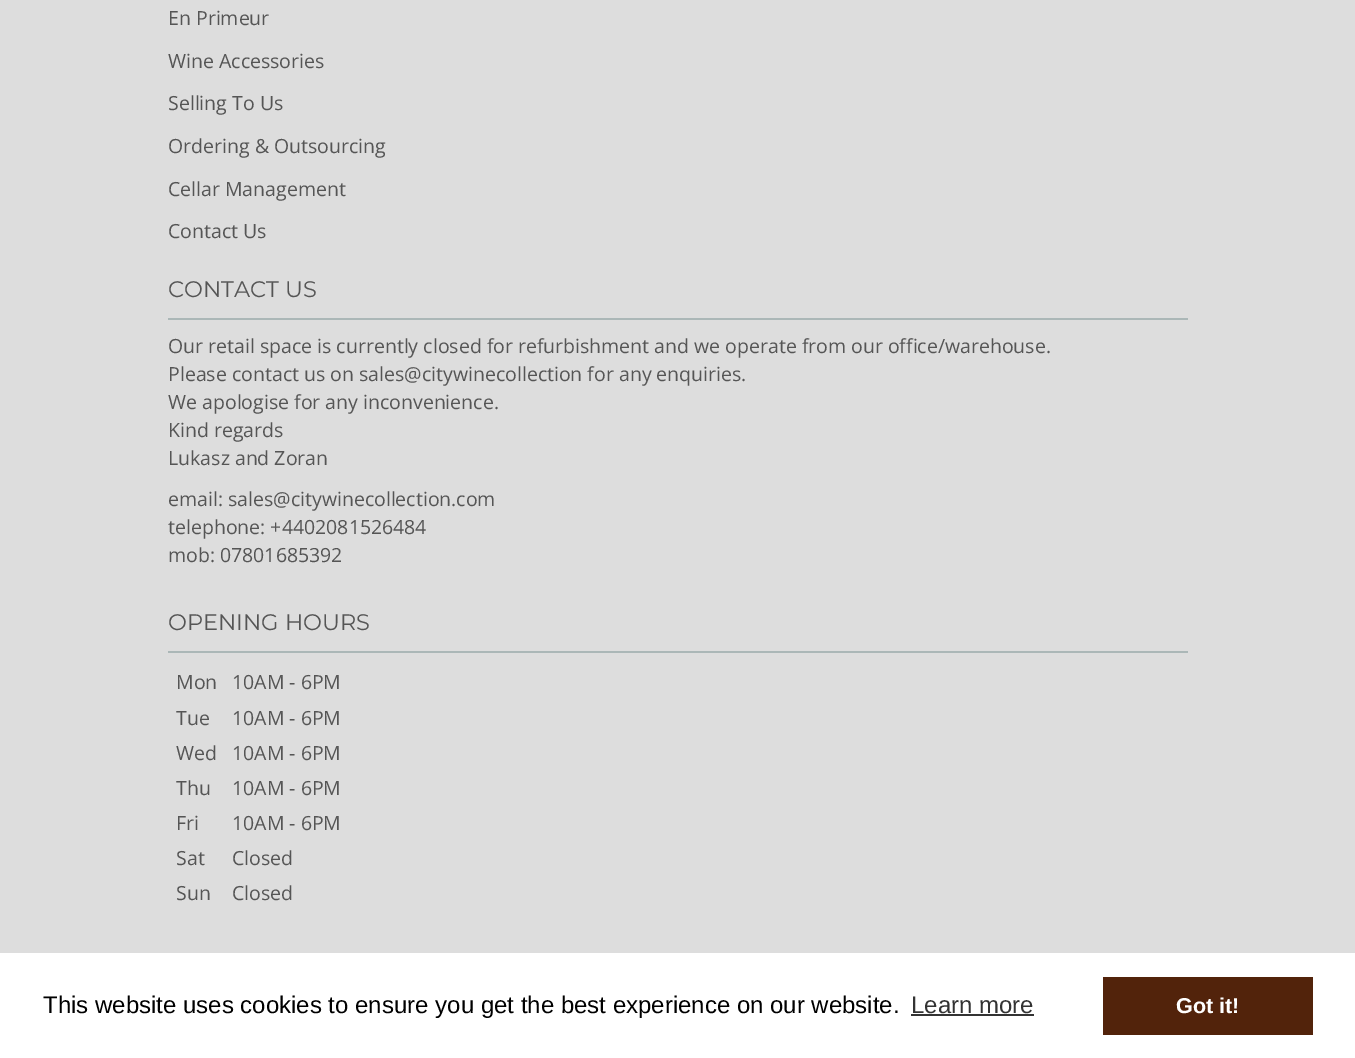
%!PS
<< /PageSize [1355 1058] >> setpagedevice
/co { dup -16 bitshift 255 div exch dup -8 bitshift 255 and 255 div exch 255 and 255 div setrgbcolor } def
/fn { [ exch dup neg 0 0 3 -1 roll 0 0 ] selectfont } def
/tx { co fn moveto show } def
/bx { co rectfill } def
0 1058 translate 1 -1 scale
4 setmiterlimit
0 0 1355 1058 16#DDDDDD bx
168 318 1020 2 16#ABB7B7 bx
168 651 1020 2 16#ABB7B7 bx
0 953 1355 105 16#FFFFFF bx
911 1014 123 2 16#333333 bx
1103 977 210 58 16#52230B bx
(En Primeur) 168 25 /OpenSans-Regular 19.5 16#555555 tx
(Wine Accessories) 168 68 /OpenSans-Regular 19.5 16#555555 tx
(Selling To Us) 168 110 /OpenSans-Regular 19.5 16#555555 tx
(Ordering & Outsourcing) 168 153 /OpenSans-Regular 19.5 16#555555 tx
(Cellar Management) 168 196 /OpenSans-Regular 19.5 16#555555 tx
(Contact Us) 168 238 /OpenSans-Regular 19.5 16#555555 tx
(CONTACT US) 168 297 /Montserrat-Thin 22.5 16#555555 tx
(Our retail space is currently closed for refurbishment and we operate from our office/warehouse.) 168 353 /OpenSans-Regular 19.5 16#555555 tx
(Please contact us on sales@citywinecollection for any enquiries.) 168 381 /OpenSans-Regular 19.5 16#555555 tx
(We apologise for any inconvenience.) 168 409 /OpenSans-Regular 19.5 16#555555 tx
(Kind regards) 168 437 /OpenSans-Regular 19.5 16#555555 tx
(Lukasz and Zoran) 168 465 /OpenSans-Regular 19.5 16#555555 tx
(email: sales@citywinecollection.com) 168 506 /OpenSans-Regular 19.5 16#555555 tx
(telephone: +4402081526484) 168 534 /OpenSans-Regular 19.5 16#555555 tx
(mob: 07801685392) 168 562 /OpenSans-Regular 19.5 16#555555 tx
(OPENING HOURS) 168 630 /Montserrat-Thin 22.5 16#555555 tx
(Mon) 176 689 /OpenSans-Regular 19.5 16#555555 tx
(10AM - 6PM) 232 689 /OpenSans-Regular 19.5 16#555555 tx
(Tue) 176 725 /OpenSans-Regular 19.5 16#555555 tx
(10AM - 6PM) 232 725 /OpenSans-Regular 19.5 16#555555 tx
(Wed) 176 760 /OpenSans-Regular 19.5 16#555555 tx
(10AM - 6PM) 232 760 /OpenSans-Regular 19.5 16#555555 tx
(Thu) 176 795 /OpenSans-Regular 19.5 16#555555 tx
(10AM - 6PM) 232 795 /OpenSans-Regular 19.5 16#555555 tx
(Fri) 176 830 /OpenSans-Regular 19.5 16#555555 tx
(10AM - 6PM) 232 830 /OpenSans-Regular 19.5 16#555555 tx
(Sat) 176 865 /OpenSans-Regular 19.5 16#555555 tx
(Closed) 232 865 /OpenSans-Regular 19.5 16#555555 tx
(Sun) 176 900 /OpenSans-Regular 19.5 16#555555 tx
(Closed) 232 900 /OpenSans-Regular 19.5 16#555555 tx
(This website uses cookies to ensure you get the best experience on our website.) 43 1013 /LiberationSans-Regular 24 16#000000 tx
(Learn more) 911 1013 /LiberationSans-Regular 24 16#333333 tx
(Got it!) 1176 1013 /LiberationSans-Bold 21.5 16#FFFFFF tx
showpage
